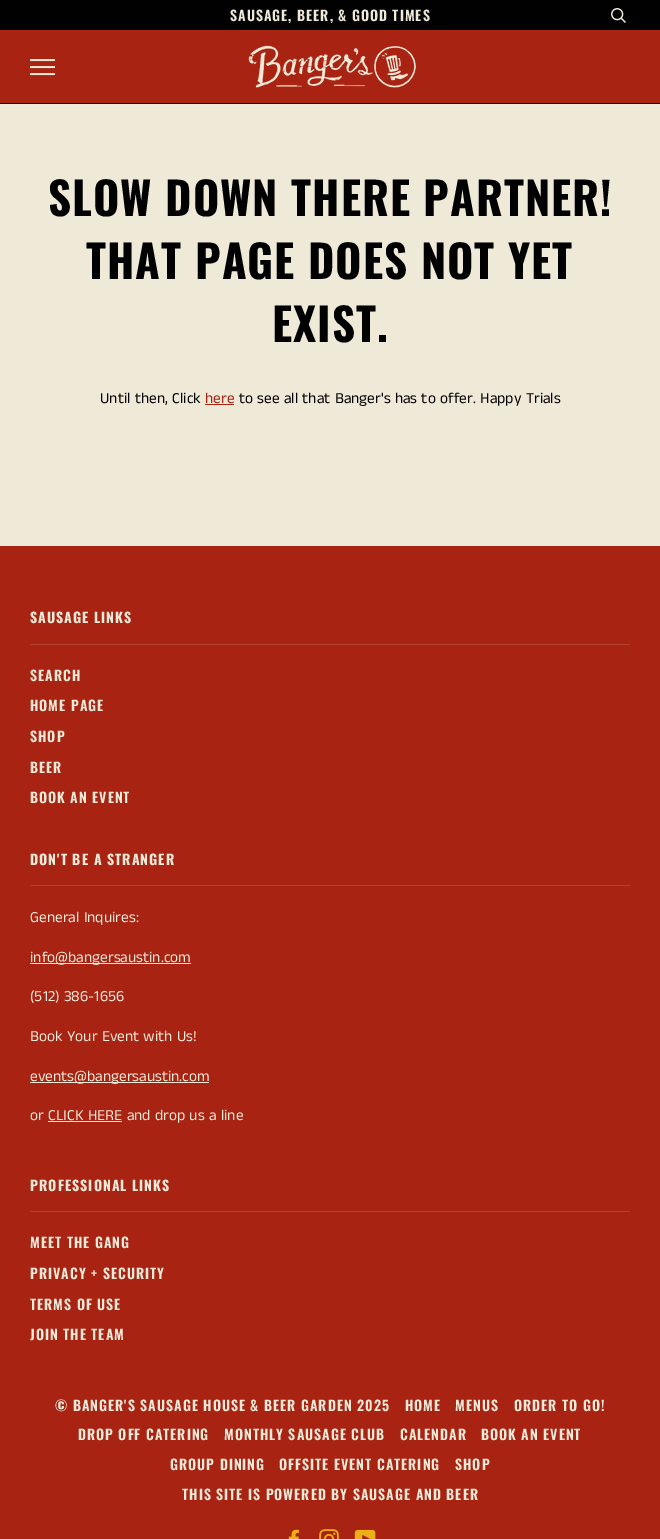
%!PS
<< /PageSize [660 1539] >> setpagedevice
/mt/moveto load def
/co { dup -16 bitshift 255 div exch dup -8 bitshift 255 and 255 div exch 255 and 255 div setrgbcolor } def
/fn { [ exch dup neg 0 0 3 -1 roll 0 0 ] selectfont } def
/tx { co fn moveto show } def
/bx { co rectfill } def
/im { 5 dict begin { /h /w /y /x /name } { exch def } forall
  gsave x y translate w h scale
  w h 8 [w 0 0 h 0 0] name (r) file false 3 colorimage grestore end } def
0 1539 translate 1 -1 scale
4 setmiterlimit
0 0 660 1539 16#EFE9D8 bx
0 0 660 30 16#020101 bx
(media/1.raw) 611 8 15 15 im
0 30 660 73 16#A92313 bx
0 103 660 1 16#020101 bx
(media/2.raw) 30 59 25 17 im
(media/3.raw) 248 45 168 43 im
205 404 29 1 16#A92313 bx
0 546 660 993 16#A92313 bx
30 644 600 1 16#B44131 bx
30 885 600 1 16#B44131 bx
30 963 161 1 16#EFE9D8 bx
30 1082 179 1 16#EFE9D8 bx
48 1121 74 1 16#EFE9D8 bx
30 1211 600 1 16#B44131 bx
(media/4.raw) 288 1529 11 10 im
(media/5.raw) 319 1529 20 10 im
(media/6.raw) 354 1529 22 10 im
/Oswald-SemiBold 14 fn
16#EFE9D8 co
230 21 mt 1 0 (SAUSAGE, BEER, & GOOD TIMES) ashow
/Oswald-Bold 45 fn
16#020101 co
48 216 mt 1 0 (SLOW DOWN THERE PARTNER!) ashow
86 279 mt 1 0 (THAT PAGE DOES NOT YET) ashow
272 342 mt 1 0 (EXIST.) ashow
(Until then, Click) 100 403 /AnekTamil-Regular 15.4 16#020101 tx
(here) 205 403 /AnekTamil-Regular 15.4 16#A92313 tx
(to see all that Banger's has to offer. Happy Trials) 239 403 /AnekTamil-Regular 15.4 16#020101 tx
/Oswald-Bold 14 fn
16#EFE9D8 co
30 623 mt 1 0 (SAUSAGE LINKS) ashow
/Oswald-SemiBold 14 fn
30 681 mt 1 0 (SEARCH) ashow
30 711 mt 1 0 (HOME PAGE) ashow
30 742 mt 1 0 (SHOP) ashow
30 773 mt 1 0 (BEER) ashow
30 803 mt 1 0 (BOOK AN EVENT) ashow
/Oswald-Bold 14 fn
30 865 mt 1 0 (DON'T BE A STRANGER) ashow
(General Inquires:) 30 922 /AnekTamil-Regular 15.4 16#EFE9D8 tx
(info@bangersaustin.com) 30 962 /AnekTamil-Regular 15.4 16#EFE9D8 tx
(\(512\) 386-1656) 30 1001 /AnekTamil-Regular 15.4 16#EFE9D8 tx
(Book Your Event with Us!) 30 1041 /AnekTamil-Regular 15.4 16#EFE9D8 tx
(events@bangersaustin.com) 30 1081 /AnekTamil-Regular 15.4 16#EFE9D8 tx
(or CLICK HERE and drop us a line) 30 1120 /AnekTamil-Regular 15.4 16#EFE9D8 tx
/Oswald-Bold 14 fn
30 1191 mt 1 0 (PROFESSIONAL LINKS) ashow
/Oswald-SemiBold 14 fn
30 1248 mt 1 0 (MEET THE GANG) ashow
30 1279 mt 1 0 (PRIVACY + SECURITY) ashow
30 1310 mt 1 0 (TERMS OF USE) ashow
30 1340 mt 1 0 (JOIN THE TEAM) ashow
55 1411 mt 1 0 (© BANGER'S SAUSAGE HOUSE & BEER GARDEN 2025) ashow
405 1411 mt 1 0 (HOME) ashow
455 1411 mt 1 0 (MENUS) ashow
514 1411 mt 1 0 (ORDER TO GO!) ashow
78 1440 mt 1 0 (DROP OFF CATERING) ashow
224 1440 mt 1 0 (MONTHLY SAUSAGE CLUB) ashow
400 1440 mt 1 0 (CALENDAR) ashow
481 1440 mt 1 0 (BOOK AN EVENT) ashow
170 1470 mt 1 0 (GROUP DINING) ashow
279 1470 mt 1 0 (OFFSITE EVENT CATERING) ashow
455 1470 mt 1 0 (SHOP) ashow
182 1500 mt 1 0 (THIS SITE IS POWERED BY SAUSAGE AND BEER) ashow
showpage
